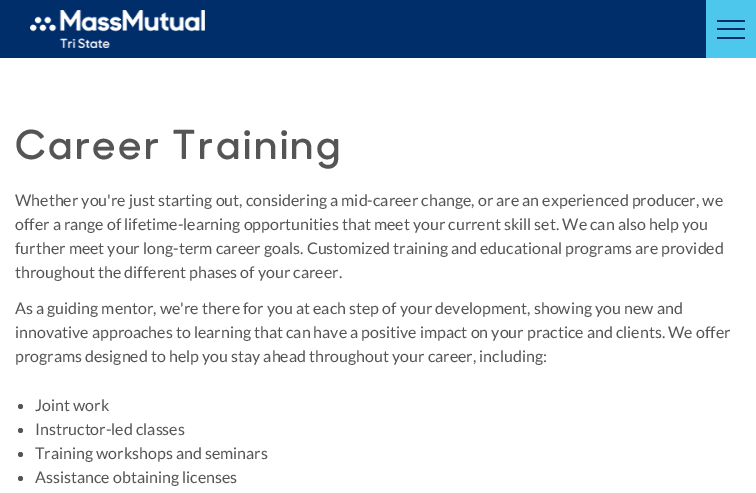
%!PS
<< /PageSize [756 493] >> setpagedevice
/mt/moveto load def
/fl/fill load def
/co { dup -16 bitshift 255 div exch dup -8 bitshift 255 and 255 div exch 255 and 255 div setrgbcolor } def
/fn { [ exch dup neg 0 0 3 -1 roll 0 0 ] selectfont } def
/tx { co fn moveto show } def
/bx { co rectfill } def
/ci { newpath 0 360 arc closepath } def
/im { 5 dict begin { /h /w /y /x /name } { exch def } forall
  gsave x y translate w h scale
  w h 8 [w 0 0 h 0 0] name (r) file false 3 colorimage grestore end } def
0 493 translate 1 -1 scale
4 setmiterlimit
0 0 756 493 16#FFFFFF bx
0 0 706 58 16#002E6B bx
(media/1.raw) 30 10 175 38 im
706 0 50 58 16#4DC7EB bx
717 20 28 2 16#002E6B bx
717 28 28 2 16#002E6B bx
717 37 28 2 16#002E6B bx
16#555555 co
20.5 406.5 2.5 ci fl
20.5 430.5 2.5 ci fl
20.5 454.5 2.5 ci fl
20.5 478.5 2.5 ci fl
/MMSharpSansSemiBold-SemiBold 40 fn
15 159 mt 2.4 0 (Career Training) ashow
(Whether you're just starting out, considering a mid-career change, or are an experienced producer, we) 15 206 /Lato-Regular 16 16#555555 tx
(offer a range of lifetime-learning opportunities that meet your current skill set. We can also help you) 15 230 /Lato-Regular 16 16#555555 tx
(further meet your long-term career goals. Customized training and educational programs are provided) 15 254 /Lato-Regular 16 16#555555 tx
(throughout the different phases of your career.) 15 278 /Lato-Regular 16 16#555555 tx
(As a guiding mentor, we're there for you at each step of your development, showing you new and) 15 314 /Lato-Regular 16 16#555555 tx
(innovative approaches to learning that can have a positive impact on your practice and clients. We offer) 15 338 /Lato-Regular 16 16#555555 tx
(programs designed to help you stay ahead throughout your career, including:) 15 362 /Lato-Regular 16 16#555555 tx
(Joint work) 35 411 /Lato-Regular 16 16#555555 tx
(Instructor-led classes) 35 435 /Lato-Regular 16 16#555555 tx
(Training workshops and seminars) 35 459 /Lato-Regular 16 16#555555 tx
(Assistance obtaining licenses) 35 483 /Lato-Regular 16 16#555555 tx
showpage
